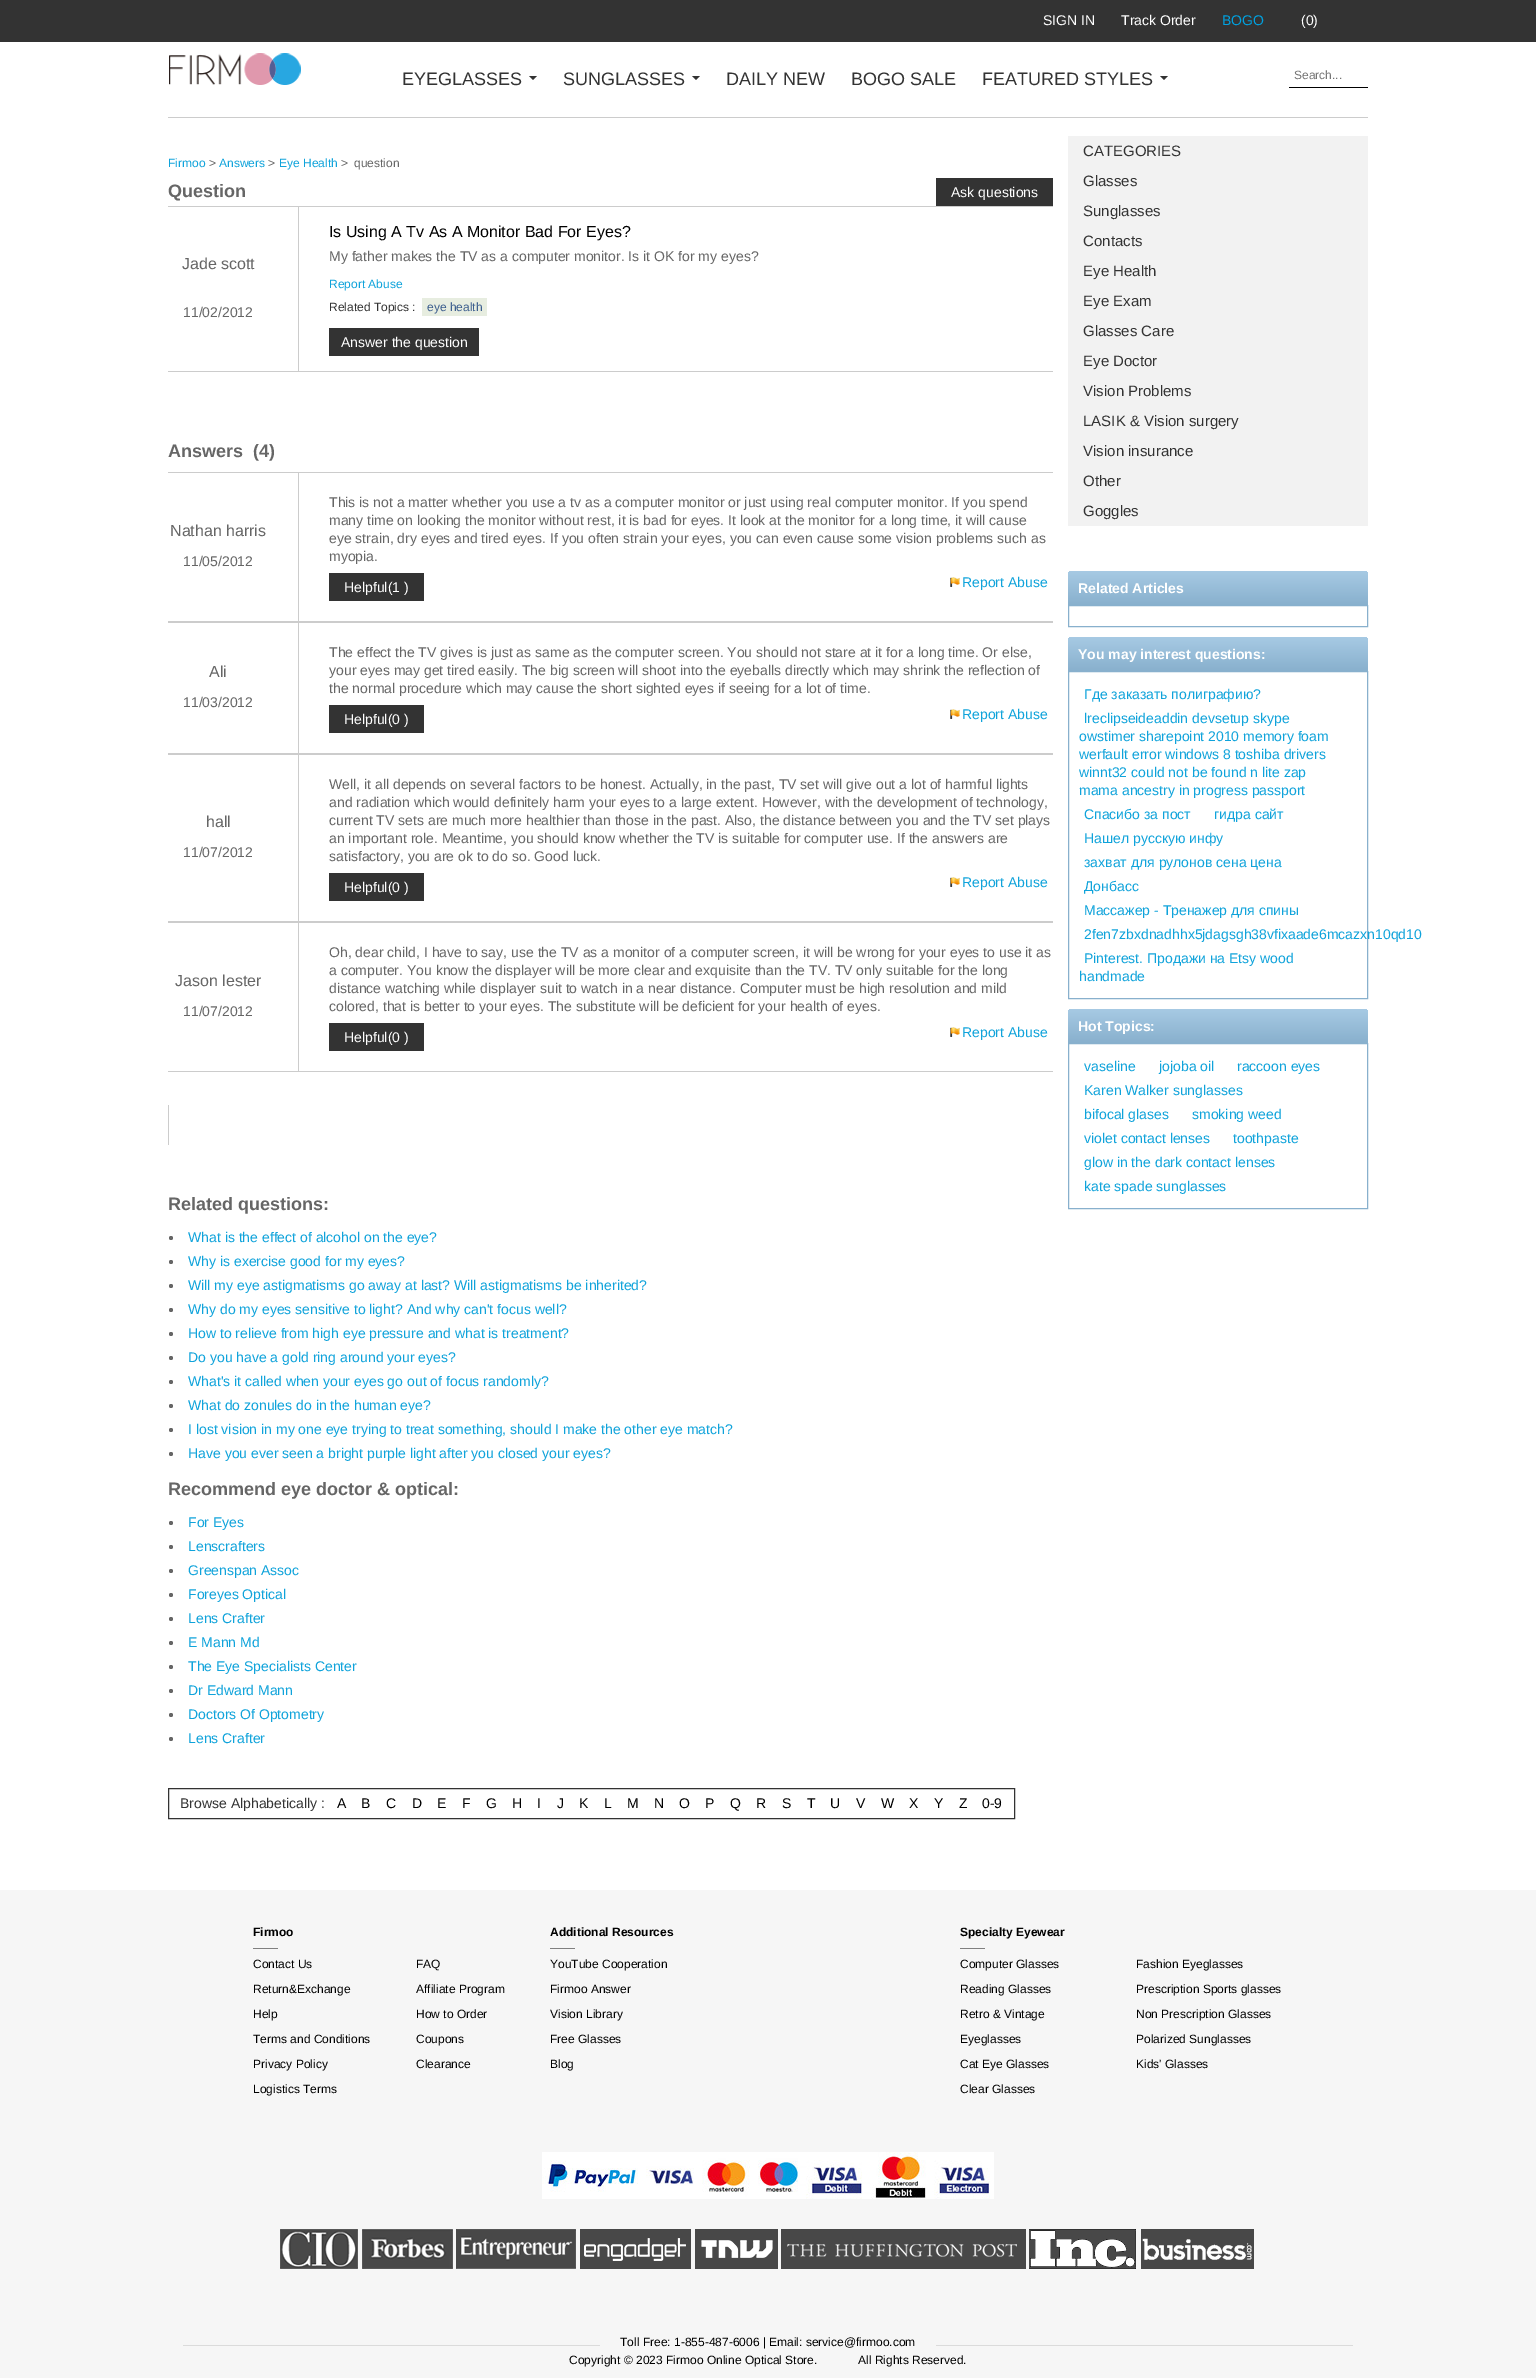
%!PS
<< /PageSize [1536 2378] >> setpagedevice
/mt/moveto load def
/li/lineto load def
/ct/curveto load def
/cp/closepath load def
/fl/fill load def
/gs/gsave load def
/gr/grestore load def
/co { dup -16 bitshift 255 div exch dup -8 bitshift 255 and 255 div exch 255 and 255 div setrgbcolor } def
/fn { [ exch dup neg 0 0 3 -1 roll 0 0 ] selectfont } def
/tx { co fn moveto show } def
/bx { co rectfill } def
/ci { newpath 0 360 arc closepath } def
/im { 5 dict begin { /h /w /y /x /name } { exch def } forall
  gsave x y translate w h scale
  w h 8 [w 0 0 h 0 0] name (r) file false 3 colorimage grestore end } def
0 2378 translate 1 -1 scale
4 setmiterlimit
0 0 1536 2378 16#FFFFFF bx
0 0 1536 42 16#333333 bx
(media/1.raw) 169 53 132 32 im
529 76 mt 537 76 li 533 80 li cp fl
692 76 mt 700 76 li 696 80 li cp fl
1160 76 mt 1168 76 li 1164 80 li cp fl
168 117 1200 1 16#CCCCCC bx
1289 87 79 1 16#000000 bx
1068 136 300 390 16#F2F2F2 bx
936 178 117 28 16#333333 bx
168 206 885 1 16#CCCCCC bx
168 371 885 1 16#CCCCCC bx
298 207 1 164 16#CCCCCC bx
422 298 65 18 16#E7EDE0 bx
329 328 150 28 16#333333 bx
168 472 885 1 16#CCCCCC bx
168 621 885 2 16#CCCCCC bx
298 473 1 148 16#CCCCCC bx
329 573 95 28 16#333333 bx
(media/2.raw) 950 577 10 10 im
168 753 885 2 16#CCCCCC bx
298 623 1 130 16#CCCCCC bx
329 705 95 28 16#333333 bx
(media/2.raw) 950 709 10 10 im
168 921 885 2 16#CCCCCC bx
298 755 1 166 16#CCCCCC bx
329 873 95 28 16#333333 bx
(media/2.raw) 950 877 10 10 im
168 1071 885 1 16#CCCCCC bx
298 923 1 148 16#CCCCCC bx
329 1023 95 28 16#333333 bx
(media/2.raw) 950 1027 10 10 im
168 1105 1 40 16#CCCCCC bx
16#666666 co
171 1238 2 ci fl
171 1262 2 ci fl
171 1286 2 ci fl
171 1310 2 ci fl
171 1334 2 ci fl
171 1358 2 ci fl
171 1382 2 ci fl
171 1406 2 ci fl
171 1430 2 ci fl
171 1454 2 ci fl
171 1523 2 ci fl
171 1547 2 ci fl
171 1571 2 ci fl
171 1595 2 ci fl
171 1619 2 ci fl
171 1643 2 ci fl
171 1667 2 ci fl
171 1691 2 ci fl
171 1715 2 ci fl
171 1739 2 ci fl
gs 1073 571 mt 1363 571 li 1366 571 1368 573 1368 576 ct 1368 605 li 1068 605 li 1068 576 li 1068 573 1070 571 1073 571 ct cp clip newpath
<< /ShadingType 2 /ColorSpace /DeviceRGB /Coords [1068 571 1068 605] /Extend [true true] /Function << /FunctionType 2 /Domain [0 1] /C0 [.655 .792 .894] /C1 [.533 .69 .804] /N 1 >> >> shfill gr
16#88B0CD co
1068.5 605.5 299 21 rectstroke
gs 1073 637 mt 1363 637 li 1366 637 1368 639 1368 642 ct 1368 671 li 1068 671 li 1068 642 li 1068 639 1070 637 1073 637 ct cp clip newpath
<< /ShadingType 2 /ColorSpace /DeviceRGB /Coords [1068 637 1068 671] /Extend [true true] /Function << /FunctionType 2 /Domain [0 1] /C0 [.655 .792 .894] /C1 [.533 .69 .804] /N 1 >> >> shfill gr
1068.5 671.5 299 327 rectstroke
gs 1073 1009 mt 1363 1009 li 1366 1009 1368 1011 1368 1014 ct 1368 1043 li 1068 1043 li 1068 1014 li 1068 1011 1070 1009 1073 1009 ct cp clip newpath
<< /ShadingType 2 /ColorSpace /DeviceRGB /Coords [1068 1009 1068 1043] /Extend [true true] /Function << /FunctionType 2 /Domain [0 1] /C0 [.655 .792 .894] /C1 [.533 .69 .804] /N 1 >> >> shfill gr
1068.5 1043.5 299 165 rectstroke
16#333333 co
168.5 1788.5 846 30 rectstroke
0 1890 1536 488 16#F6F6F6 bx
253 1948 25 1 16#808080 bx
550 1948 25 1 16#808080 bx
960 1948 25 1 16#808080 bx
(media/3.raw) 542 2152 452 47 im
(media/4.raw) 280 2229 78 40 im
(media/5.raw) 362 2229 91 40 im
(media/6.raw) 456 2229 120 40 im
(media/7.raw) 580 2229 111 40 im
(media/8.raw) 695 2229 83 40 im
(media/9.raw) 781 2229 245 40 im
(media/10.raw) 1029 2229 107 40 im
(media/11.raw) 1141 2229 113 40 im
183 2345 1170 1 16#DBDBDB bx
600 2345 336 1 16#F6F6F6 bx
(SIGN IN) 1043 25 /LiberationSans-Regular 14 16#FFFFFF tx
(Track Order) 1121 25 /LiberationSans-Regular 14 16#FFFFFF tx
(BOGO) 1222 25 /LiberationSans-Regular 14 16#00A2E1 tx
(\(0\)) 1301 25 /LiberationSans-Regular 14 16#FFFFFF tx
(EYEGLASSES) 402 85 /LiberationSans-Regular 18 16#333333 tx
(SUNGLASSES) 563 85 /LiberationSans-Regular 18 16#333333 tx
(DAILY NEW) 726 85 /LiberationSans-Regular 18 16#333333 tx
(BOGO SALE) 851 85 /LiberationSans-Regular 18 16#333333 tx
(FEATURED STYLES) 982 85 /LiberationSans-Regular 18 16#333333 tx
(Search...) 1294 79 /LiberationSans-Regular 12 16#757575 tx
(CATEGORIES) 1083 156 /LiberationSans-Regular 15 16#333333 tx
(Glasses) 1083 186 /LiberationSans-Regular 15 16#333333 tx
(Sunglasses) 1083 216 /LiberationSans-Regular 15 16#333333 tx
(Contacts) 1083 246 /LiberationSans-Regular 15 16#333333 tx
(Eye Health) 1083 276 /LiberationSans-Regular 15 16#333333 tx
(Eye Exam) 1083 306 /LiberationSans-Regular 15 16#333333 tx
(Glasses Care) 1083 336 /LiberationSans-Regular 15 16#333333 tx
(Eye Doctor) 1083 366 /LiberationSans-Regular 15 16#333333 tx
(Vision Problems) 1083 396 /LiberationSans-Regular 15 16#333333 tx
(LASIK & Vision surgery) 1083 426 /LiberationSans-Regular 15 16#333333 tx
(Vision insurance) 1083 456 /LiberationSans-Regular 15 16#333333 tx
(Other) 1083 486 /LiberationSans-Regular 15 16#333333 tx
(Goggles) 1083 516 /LiberationSans-Regular 15 16#333333 tx
(Firmoo) 168 167 /LiberationSans-Regular 12 16#0FA3DB tx
(>) 209 167 /LiberationSans-Regular 12 16#666666 tx
(Answers) 219 167 /LiberationSans-Regular 12 16#0FA3DB tx
(>) 268 167 /LiberationSans-Regular 12 16#666666 tx
(Eye Health) 279 167 /LiberationSans-Regular 12 16#0FA3DB tx
(>) 341 167 /LiberationSans-Regular 12 16#666666 tx
(question) 354 167 /LiberationSans-Regular 12 16#666666 tx
(Question) 168 197 /LiberationSans-Bold 18 16#666666 tx
(Ask questions) 951 197 /LiberationSans-Regular 14 16#FFFFFF tx
(Jade scott) 182 269 /LiberationSans-Regular 16 16#666666 tx
(11/02/2012) 183 317 /LiberationSans-Regular 14 16#666666 tx
(Is Using A Tv As A Monitor Bad For Eyes?) 329 237 /LiberationSans-Regular 16 16#000000 tx
(My father makes the TV as a computer monitor. Is it OK for my eyes?) 329 261 /LiberationSans-Regular 14 16#666666 tx
(Report Abuse) 329 288 /LiberationSans-Regular 12 16#0FA3DB tx
(Related Topics :) 329 311 /LiberationSans-Regular 12 16#333333 tx
(eye health) 427 311 /LiberationSans-Regular 12 16#3C5E8E tx
(Answer the question) 341 347 /LiberationSans-Regular 14 16#FFFFFF tx
(Answers) 168 457 /LiberationSans-Bold 18 16#666666 tx
(\(4\)) 253 457 /LiberationSans-Bold 18 16#666666 tx
(Nathan harris) 170 536 /LiberationSans-Regular 16 16#666666 tx
(11/05/2012) 183 566 /LiberationSans-Regular 14 16#666666 tx
(This is not a matter whether you use a tv as a computer monitor or just using real computer monitor. If you spend) 329 507 /LiberationSans-Regular 14 16#666666 tx
(many time on looking the monitor without rest, it is bad for eyes. It look at the monitor for a long time, it will cause) 329 525 /LiberationSans-Regular 14 16#666666 tx
(eye strain, dry eyes and tired eyes. If you often strain your eyes, you can even cause some vision problems such as) 329 543 /LiberationSans-Regular 14 16#666666 tx
(myopia.) 329 561 /LiberationSans-Regular 14 16#666666 tx
(Helpful\(1 \)) 344 592 /LiberationSans-Regular 14 16#FFFFFF tx
(Report Abuse) 962 587 /LiberationSans-Regular 14 16#0FA3DB tx
(Ali) 209 677 /LiberationSans-Regular 16 16#666666 tx
(11/03/2012) 183 707 /LiberationSans-Regular 14 16#666666 tx
(The effect the TV gives is just as same as the computer screen. You should not stare at it for a long time. Or else,) 329 657 /LiberationSans-Regular 14 16#666666 tx
(your eyes may get tired easily. The big screen will shoot into the eyeballs directly which may shrink the reflection of) 329 675 /LiberationSans-Regular 14 16#666666 tx
(the normal procedure which may cause the short sighted eyes if seeing for a lot of time.) 329 693 /LiberationSans-Regular 14 16#666666 tx
(Helpful\(0 \)) 344 724 /LiberationSans-Regular 14 16#FFFFFF tx
(Report Abuse) 962 719 /LiberationSans-Regular 14 16#0FA3DB tx
(hall) 206 827 /LiberationSans-Regular 16 16#666666 tx
(11/07/2012) 183 857 /LiberationSans-Regular 14 16#666666 tx
(Well, it all depends on several factors to be honest. Actually, in the past, TV set will give out a lot of harmful lights) 329 789 /LiberationSans-Regular 14 16#666666 tx
(and radiation which would definitely harm your eyes to a large extent. However, with the development of technology,) 329 807 /LiberationSans-Regular 14 16#666666 tx
(current TV sets are much more healthier than those in the past. Also, the distance between you and the TV set plays) 329 825 /LiberationSans-Regular 14 16#666666 tx
(an important role. Meantime, you should know whether the TV is suitable for computer use. If the answers are) 329 843 /LiberationSans-Regular 14 16#666666 tx
(satisfactory, you are ok to do so. Good luck.) 329 861 /LiberationSans-Regular 14 16#666666 tx
(Helpful\(0 \)) 344 892 /LiberationSans-Regular 14 16#FFFFFF tx
(Report Abuse) 962 887 /LiberationSans-Regular 14 16#0FA3DB tx
(Jason lester) 175 986 /LiberationSans-Regular 16 16#666666 tx
(11/07/2012) 183 1016 /LiberationSans-Regular 14 16#666666 tx
(Oh, dear child, I have to say, use the TV as a monitor of a computer screen, it will be wrong for your eyes to use it as) 329 957 /LiberationSans-Regular 14 16#666666 tx
(a computer. You know the displayer will be more clear and exquisite than the TV. TV only suitable for the long) 329 975 /LiberationSans-Regular 14 16#666666 tx
(distance watching while displayer suit to watch in a near distance. Computer must be high resolution and mild) 329 993 /LiberationSans-Regular 14 16#666666 tx
(colored, that is better to your eyes. The substitute will be deficient for your health of eyes.) 329 1011 /LiberationSans-Regular 14 16#666666 tx
(Helpful\(0 \)) 344 1042 /LiberationSans-Regular 14 16#FFFFFF tx
(Report Abuse) 962 1037 /LiberationSans-Regular 14 16#0FA3DB tx
(Related questions:) 168 1210 /LiberationSans-Bold 18 16#666666 tx
(What is the effect of alcohol on the eye?) 188 1242 /LiberationSans-Regular 14 16#0FA3DB tx
(Why is exercise good for my eyes?) 188 1266 /LiberationSans-Regular 14 16#0FA3DB tx
(Will my eye astigmatisms go away at last? Will astigmatisms be inherited?) 188 1290 /LiberationSans-Regular 14 16#0FA3DB tx
(Why do my eyes sensitive to light? And why can't focus well?) 188 1314 /LiberationSans-Regular 14 16#0FA3DB tx
(How to relieve from high eye pressure and what is treatment?) 188 1338 /LiberationSans-Regular 14 16#0FA3DB tx
(Do you have a gold ring around your eyes?) 188 1362 /LiberationSans-Regular 14 16#0FA3DB tx
(What's it called when your eyes go out of focus randomly?) 188 1386 /LiberationSans-Regular 14 16#0FA3DB tx
(What do zonules do in the human eye?) 188 1410 /LiberationSans-Regular 14 16#0FA3DB tx
(I lost vision in my one eye trying to treat something, should I make the other eye match?) 188 1434 /LiberationSans-Regular 14 16#0FA3DB tx
(Have you ever seen a bright purple light after you closed your eyes?) 188 1458 /LiberationSans-Regular 14 16#0FA3DB tx
(Recommend eye doctor & optical:) 168 1495 /LiberationSans-Bold 18 16#666666 tx
(For Eyes) 188 1527 /LiberationSans-Regular 14 16#0FA3DB tx
(Lenscrafters) 188 1551 /LiberationSans-Regular 14 16#0FA3DB tx
(Greenspan Assoc) 188 1575 /LiberationSans-Regular 14 16#0FA3DB tx
(Foreyes Optical) 188 1599 /LiberationSans-Regular 14 16#0FA3DB tx
(Lens Crafter) 188 1623 /LiberationSans-Regular 14 16#0FA3DB tx
(E Mann Md) 188 1647 /LiberationSans-Regular 14 16#0FA3DB tx
(The Eye Specialists Center) 188 1671 /LiberationSans-Regular 14 16#0FA3DB tx
(Dr Edward Mann) 188 1695 /LiberationSans-Regular 14 16#0FA3DB tx
(Doctors Of Optometry) 188 1719 /LiberationSans-Regular 14 16#0FA3DB tx
(Lens Crafter) 188 1743 /LiberationSans-Regular 14 16#0FA3DB tx
(Related Articles) 1078 593 /LiberationSans-Bold 14 16#FFFFFF tx
(You may interest questions:) 1078 659 /LiberationSans-Bold 14 16#FFFFFF tx
(Где заказать полиграфию?) 1084 699 /LiberationSans-Regular 14 16#0FA3DB tx
(lreclipseideaddin devsetup skype) 1084 723 /LiberationSans-Regular 14 16#0FA3DB tx
(owstimer sharepoint 2010 memory foam) 1079 741 /LiberationSans-Regular 14 16#0FA3DB tx
(werfault error windows 8 toshiba drivers) 1079 759 /LiberationSans-Regular 14 16#0FA3DB tx
(winnt32 could not be found n lite zap) 1079 777 /LiberationSans-Regular 14 16#0FA3DB tx
(mama ancestry in progress passport) 1079 795 /LiberationSans-Regular 14 16#0FA3DB tx
(Спасибо за пост) 1084 819 /LiberationSans-Regular 14 16#0FA3DB tx
(гидра сайт) 1214 819 /LiberationSans-Regular 14 16#0FA3DB tx
(Нашел русскую инфу) 1084 843 /LiberationSans-Regular 14 16#0FA3DB tx
(захват для рулонов сена цена) 1084 867 /LiberationSans-Regular 14 16#0FA3DB tx
(Донбасс) 1084 891 /LiberationSans-Regular 14 16#0FA3DB tx
(Массажер - Тренажер для спины) 1084 915 /LiberationSans-Regular 14 16#0FA3DB tx
(2fen7zbxdnadhhx5jdagsgh38vfixaade6mcazxn10qd10) 1084 939 /LiberationSans-Regular 14 16#0FA3DB tx
(Pinterest. Продажи на Etsy wood) 1084 963 /LiberationSans-Regular 14 16#0FA3DB tx
(handmade) 1079 981 /LiberationSans-Regular 14 16#0FA3DB tx
(Hot Topics:) 1078 1031 /LiberationSans-Bold 14 16#FFFFFF tx
(vaseline) 1084 1071 /LiberationSans-Regular 14 16#0FA3DB tx
(jojoba oil) 1159 1071 /LiberationSans-Regular 14 16#0FA3DB tx
(raccoon eyes) 1237 1071 /LiberationSans-Regular 14 16#0FA3DB tx
(Karen Walker sunglasses) 1084 1095 /LiberationSans-Regular 14 16#0FA3DB tx
(bifocal glases) 1084 1119 /LiberationSans-Regular 14 16#0FA3DB tx
(smoking weed) 1192 1119 /LiberationSans-Regular 14 16#0FA3DB tx
(violet contact lenses) 1084 1143 /LiberationSans-Regular 14 16#0FA3DB tx
(toothpaste) 1233 1143 /LiberationSans-Regular 14 16#0FA3DB tx
(glow in the dark contact lenses) 1084 1167 /LiberationSans-Regular 14 16#0FA3DB tx
(kate spade sunglasses) 1084 1191 /LiberationSans-Regular 14 16#0FA3DB tx
(Browse Alphabetically :) 180 1808 /LiberationSans-Regular 14 16#333333 tx
(A) 337 1808 /LiberationSans-Regular 14 16#000000 tx
(B) 361 1808 /LiberationSans-Regular 14 16#000000 tx
(C) 386 1808 /LiberationSans-Regular 14 16#000000 tx
(D) 412 1808 /LiberationSans-Regular 14 16#000000 tx
(E) 437 1808 /LiberationSans-Regular 14 16#000000 tx
(F) 462 1808 /LiberationSans-Regular 14 16#000000 tx
(G) 486 1808 /LiberationSans-Regular 14 16#000000 tx
(H) 512 1808 /LiberationSans-Regular 14 16#000000 tx
(I) 537 1808 /LiberationSans-Regular 14 16#000000 tx
(J) 557 1808 /LiberationSans-Regular 14 16#000000 tx
(K) 579 1808 /LiberationSans-Regular 14 16#000000 tx
(L) 604 1808 /LiberationSans-Regular 14 16#000000 tx
(M) 627 1808 /LiberationSans-Regular 14 16#000000 tx
(N) 654 1808 /LiberationSans-Regular 14 16#000000 tx
(O) 679 1808 /LiberationSans-Regular 14 16#000000 tx
(P) 705 1808 /LiberationSans-Regular 14 16#000000 tx
(Q) 730 1808 /LiberationSans-Regular 14 16#000000 tx
(R) 756 1808 /LiberationSans-Regular 14 16#000000 tx
(S) 782 1808 /LiberationSans-Regular 14 16#000000 tx
(T) 807 1808 /LiberationSans-Regular 14 16#000000 tx
(U) 830 1808 /LiberationSans-Regular 14 16#000000 tx
(V) 856 1808 /LiberationSans-Regular 14 16#000000 tx
(W) 881 1808 /LiberationSans-Regular 14 16#000000 tx
(X) 909 1808 /LiberationSans-Regular 14 16#000000 tx
(Y) 934 1808 /LiberationSans-Regular 14 16#000000 tx
(Z) 959 1808 /LiberationSans-Regular 14 16#000000 tx
(0-9) 982 1808 /LiberationSans-Regular 14 16#000000 tx
(Firmoo) 253 1936 /LiberationSans-Bold 12 16#000000 tx
(Contact Us) 253 1968 /LiberationSans-Regular 12 16#000000 tx
(Return&Exchange) 253 1993 /LiberationSans-Regular 12 16#000000 tx
(Help) 253 2018 /LiberationSans-Regular 12 16#000000 tx
(Terms and Conditions) 253 2043 /LiberationSans-Regular 12 16#000000 tx
(Privacy Policy) 253 2068 /LiberationSans-Regular 12 16#000000 tx
(Logistics Terms) 253 2093 /LiberationSans-Regular 12 16#000000 tx
(FAQ) 416 1968 /LiberationSans-Regular 12 16#000000 tx
(Affiliate Program) 416 1993 /LiberationSans-Regular 12 16#000000 tx
(How to Order) 416 2018 /LiberationSans-Regular 12 16#000000 tx
(Coupons) 416 2043 /LiberationSans-Regular 12 16#000000 tx
(Clearance) 416 2068 /LiberationSans-Regular 12 16#000000 tx
(Additional Resources) 550 1936 /LiberationSans-Bold 12 16#000000 tx
(YouTube Cooperation) 550 1968 /LiberationSans-Regular 12 16#000000 tx
(Firmoo Answer) 550 1993 /LiberationSans-Regular 12 16#000000 tx
(Vision Library) 550 2018 /LiberationSans-Regular 12 16#000000 tx
(Free Glasses) 550 2043 /LiberationSans-Regular 12 16#000000 tx
(Blog) 550 2068 /LiberationSans-Regular 12 16#000000 tx
(Specialty Eyewear) 960 1936 /LiberationSans-Bold 12 16#000000 tx
(Computer Glasses) 960 1968 /LiberationSans-Regular 12 16#000000 tx
(Reading Glasses) 960 1993 /LiberationSans-Regular 12 16#000000 tx
(Retro & Vintage) 960 2018 /LiberationSans-Regular 12 16#000000 tx
(Eyeglasses) 960 2043 /LiberationSans-Regular 12 16#000000 tx
(Cat Eye Glasses) 960 2068 /LiberationSans-Regular 12 16#000000 tx
(Clear Glasses) 960 2093 /LiberationSans-Regular 12 16#000000 tx
(Fashion Eyeglasses) 1136 1968 /LiberationSans-Regular 12 16#000000 tx
(Prescription Sports glasses) 1136 1993 /LiberationSans-Regular 12 16#000000 tx
(Non Prescription Glasses) 1136 2018 /LiberationSans-Regular 12 16#000000 tx
(Polarized Sunglasses) 1136 2043 /LiberationSans-Regular 12 16#000000 tx
(Kids' Glasses) 1136 2068 /LiberationSans-Regular 12 16#000000 tx
(Toll Free: 1-855-487-6006 | Email: service@firmoo.com) 620 2346 /LiberationSans-Regular 12 16#000000 tx
(Copyright © 2023 Firmoo Online Optical Store.) 569 2364 /LiberationSans-Regular 12 16#000000 tx
(All Rights Reserved.) 858 2364 /LiberationSans-Regular 12 16#000000 tx
showpage
